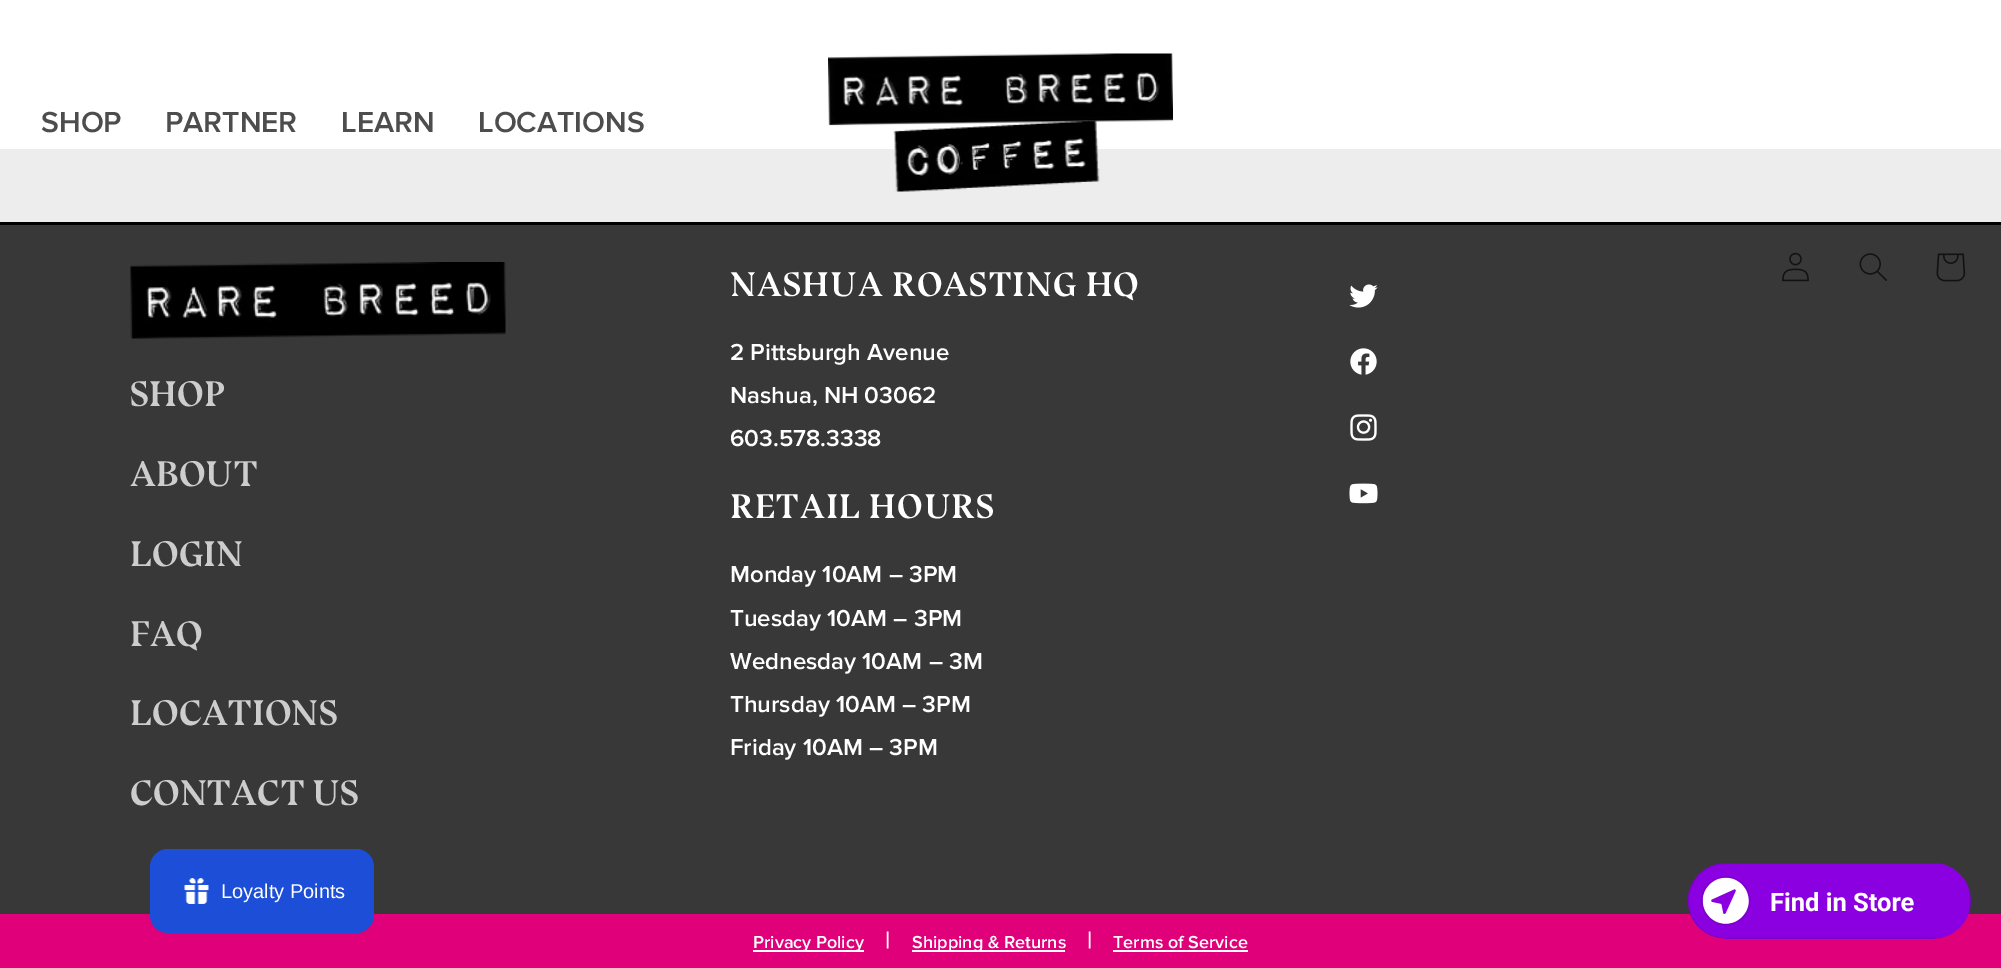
%!PS
<< /PageSize [2001 968] >> setpagedevice
/mt/moveto load def
/fl/fill load def
/co { dup -16 bitshift 255 div exch dup -8 bitshift 255 and 255 div exch 255 and 255 div setrgbcolor } def
/fn { [ exch dup neg 0 0 3 -1 roll 0 0 ] selectfont } def
/tx { co fn moveto show } def
/bx { co rectfill } def
/rr { 5 dict begin { /r /h /w /y /x } { exch def } forall
  x r add y moveto x w add y 2 copy h add r arct x w add y h add x 1 index r arct
  x y h add x y r arct x y 2 copy exch w add exch r arct closepath end } def
/im { 5 dict begin { /h /w /y /x /name } { exch def } forall
  gsave x y translate w h scale
  w h 8 [w 0 0 h 0 0] name (r) file false 3 colorimage grestore end } def
0 968 translate 1 -1 scale
4 setmiterlimit
0 0 2001 968 16#FFFFFF bx
0 222 2001 3 16#000000 bx
0 149 2001 73 16#EDEDED bx
(media/1.raw) 828 53 345 139 im
0 225 2001 689 16#383838 bx
(media/2.raw) 1782 252 27 30 im
(media/3.raw) 1859 253 28 28 im
(media/4.raw) 1936 253 30 29 im
(media/5.raw) 130 262 376 77 im
(media/6.raw) 1349 284 29 24 im
(media/7.raw) 1350 348 27 27 im
(media/8.raw) 1350 414 27 27 im
(media/9.raw) 1349 483 29 21 im
0 914 2001 54 16#E0007A bx
16#1D4ED8 co
150 849 224 84 18 rr fl
(media/10.raw) 184 878 25 26 im
(media/11.raw) 1688 863 283 76 im
753 950 111 2 16#FFFFFF bx
912 950 153 2 16#FFFFFF bx
1113 950 135 2 16#FFFFFF bx
(SHOP) 41 132 /ProximaNova-SemiBold 30 16#4D4D4D tx
(PARTNER) 165 132 /ProximaNova-SemiBold 30 16#4D4D4D tx
(LEARN) 341 132 /ProximaNova-SemiBold 30 16#4D4D4D tx
(LOCATIONS) 478 132 /ProximaNova-SemiBold 30 16#4D4D4D tx
(SHOP) 130 406 /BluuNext-Bold 36 16#CDCDCD tx
(ABOUT) 130 486 /BluuNext-Bold 36 16#CDCDCD tx
(LOGIN) 130 566 /BluuNext-Bold 36 16#CDCDCD tx
(FAQ) 130 646 /BluuNext-Bold 36 16#CDCDCD tx
(LOCATIONS) 130 725 /BluuNext-Bold 36 16#CDCDCD tx
(CONTACT US) 130 805 /BluuNext-Bold 36 16#CDCDCD tx
/BluuNext-Bold 34.5 fn
16#FFFFFF co
730 296 mt .9 0 (NASHUA ROASTING HQ) ashow
(2 Pittsburgh Avenue) 730 360 /ProximaNova-SemiBold 24 16#FFFFFF tx
(Nashua, NH 03062) 730 403 /ProximaNova-SemiBold 24 16#FFFFFF tx
(603.578.3338) 730 446 /ProximaNova-SemiBold 24 16#FFFFFF tx
/BluuNext-Bold 34.5 fn
730 518 mt .9 0 (RETAIL HOURS) ashow
(Monday 10AM – 3PM) 730 582 /ProximaNova-SemiBold 24 16#FFFFFF tx
(Tuesday 10AM – 3PM) 730 626 /ProximaNova-SemiBold 24 16#FFFFFF tx
(Wednesday 10AM – 3M) 730 669 /ProximaNova-SemiBold 24 16#FFFFFF tx
(Thursday 10AM – 3PM) 730 712 /ProximaNova-SemiBold 24 16#FFFFFF tx
(Friday 10AM – 3PM) 730 755 /ProximaNova-SemiBold 24 16#FFFFFF tx
(Loyalty Points) 221 898 /LiberationSans-Regular 20 16#FFFFFF tx
(Privacy Policy) 753 948 /ProximaNova-SemiBold 18 16#FFFFFF tx
(|) 885 948 /ProximaNova-SemiBold 24 16#FFFFFF tx
(Shipping & Returns) 912 948 /ProximaNova-SemiBold 18 16#FFFFFF tx
(|) 1087 948 /ProximaNova-SemiBold 24 16#FFFFFF tx
(Terms of Service) 1113 948 /ProximaNova-SemiBold 18 16#FFFFFF tx
showpage
